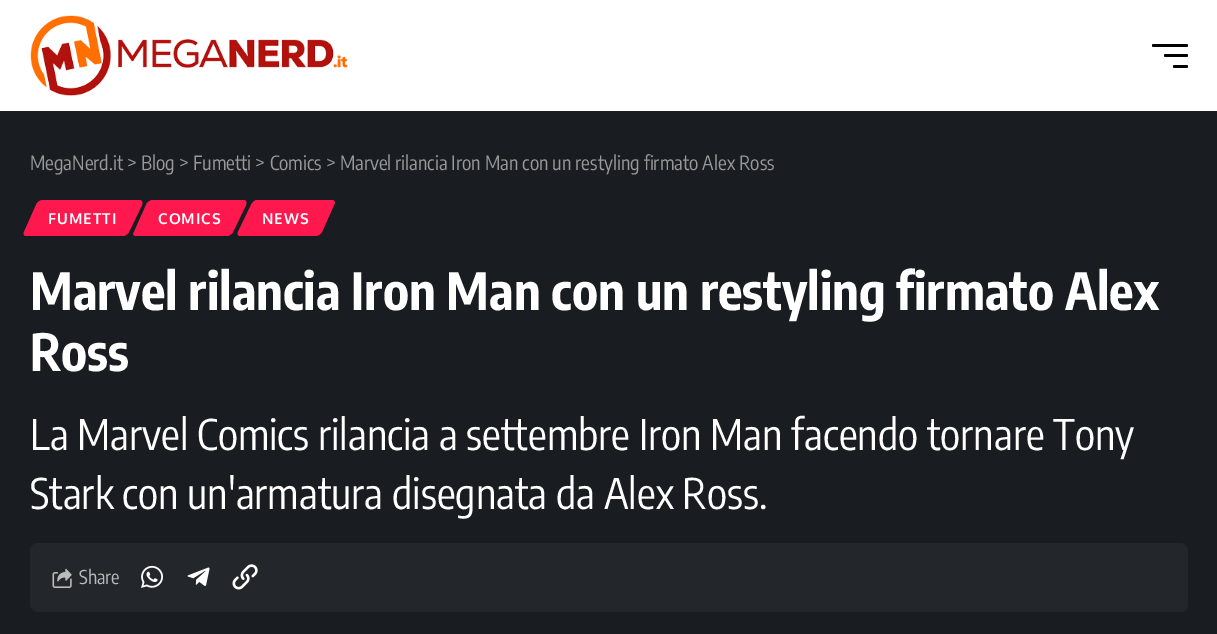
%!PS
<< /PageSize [1217 634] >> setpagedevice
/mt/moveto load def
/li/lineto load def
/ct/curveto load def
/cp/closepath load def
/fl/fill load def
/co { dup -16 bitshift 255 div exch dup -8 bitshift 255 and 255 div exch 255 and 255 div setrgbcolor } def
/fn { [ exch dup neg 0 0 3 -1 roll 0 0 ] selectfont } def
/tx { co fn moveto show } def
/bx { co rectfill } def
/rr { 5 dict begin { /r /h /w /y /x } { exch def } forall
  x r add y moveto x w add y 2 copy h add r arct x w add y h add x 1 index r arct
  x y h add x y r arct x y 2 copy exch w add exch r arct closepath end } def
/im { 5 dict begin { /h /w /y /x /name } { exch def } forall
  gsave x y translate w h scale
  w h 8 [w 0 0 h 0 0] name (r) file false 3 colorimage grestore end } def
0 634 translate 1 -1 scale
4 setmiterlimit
0 0 1217 634 16#FFFFFF bx
(media/1.raw) 30 15 318 81 im
16#000000 co
1152 44 36 3 1.5 rr fl
1164 54 24 3 1.5 rr fl
1173 65 15 3 1.5 rr fl
0 111 1217 523 16#191C20 bx
16#FF184E co
43 200 mt 139 200 li 142 200 143 202 142 205 ct 129 232 li 128 234 125 236 123 236 ct 26 236 li 24 236 23 234 24 232 ct 36 205 li 37 202 40 200 43 200 ct cp fl
153 200 mt 244 200 li 246 200 247 202 246 205 ct 233 232 li 232 234 229 236 227 236 ct 136 236 li 134 236 132 234 134 232 ct 146 205 li 147 202 150 200 153 200 ct cp fl
257 200 mt 332 200 li 334 200 336 202 334 205 ct 322 232 li 321 234 318 236 315 236 ct 240 236 li 238 236 237 234 238 232 ct 251 205 li 252 202 255 200 257 200 ct cp fl
16#23262A co
30 543 1158 69 8 rr fl
(media/2.raw) 52 568 20 20 im
(media/3.raw) 141 565 22 23 im
(media/4.raw) 187 567 23 19 im
(media/5.raw) 232 564 26 26 im
(MegaNerd.it > Blog > Fumetti > Comics > Marvel rilancia Iron Man con un restyling firmato Alex Ross) 30 170 /EncodeSansCondensed-Regular 19.5 16#999999 tx
/Oxygen-Bold 15 fn
16#FFFFFF co
48 224 mt 1 0 (FUMETTI) ashow
158 224 mt 1 0 (COMICS) ashow
262 224 mt 1 0 (NEWS) ashow
(Marvel rilancia Iron Man con un restyling firmato Alex) 30 310 /EncodeSansCondensed-Bold 51 16#FFFFFF tx
(Ross) 30 371 /EncodeSansCondensed-Bold 51 16#FFFFFF tx
(La Marvel Comics rilancia a settembre Iron Man facendo tornare Tony) 30 450 /EncodeSansCondensed-Regular 42 16#FFFFFF tx
(Stark con un'armatura disegnata da Alex Ross.) 30 509 /EncodeSansCondensed-Regular 42 16#FFFFFF tx
(Share) 79 584 /EncodeSansCondensed-Regular 19 16#BBBBBB tx
showpage
